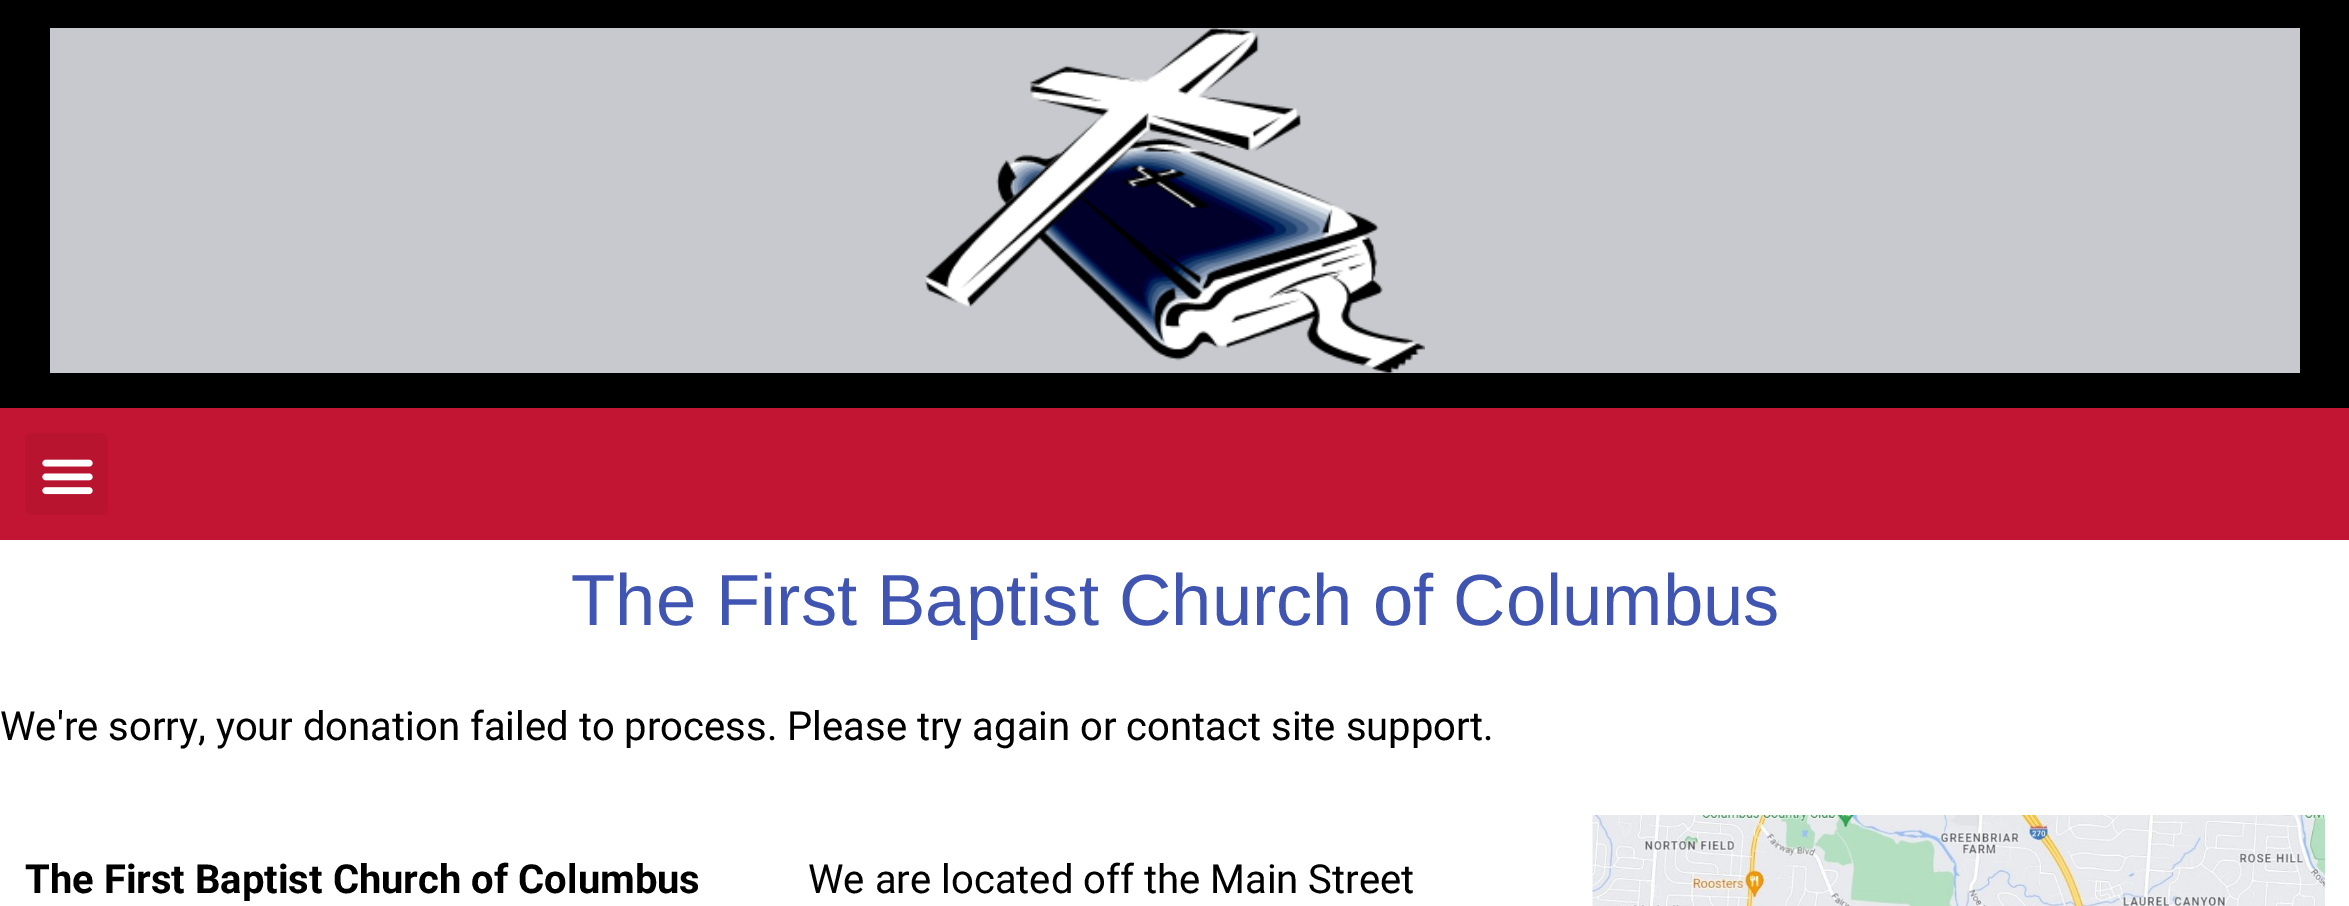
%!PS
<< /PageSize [2349 906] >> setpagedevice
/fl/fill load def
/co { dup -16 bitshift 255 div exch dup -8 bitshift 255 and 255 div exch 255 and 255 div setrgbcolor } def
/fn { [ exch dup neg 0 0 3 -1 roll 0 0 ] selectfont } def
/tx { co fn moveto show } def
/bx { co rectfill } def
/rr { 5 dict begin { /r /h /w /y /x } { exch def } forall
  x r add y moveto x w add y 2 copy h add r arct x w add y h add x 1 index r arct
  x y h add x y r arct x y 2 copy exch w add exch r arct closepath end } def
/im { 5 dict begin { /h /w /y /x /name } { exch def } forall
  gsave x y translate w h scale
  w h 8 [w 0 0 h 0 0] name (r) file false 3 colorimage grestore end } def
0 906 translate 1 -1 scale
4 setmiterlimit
0 0 2349 906 16#FFFFFF bx
0 0 2349 408 16#000000 bx
50 28 2250 345 16#C7C9CE bx
(media/1.raw) 925 28 500 345 im
0 408 2349 132 16#C21533 bx
16#B81430 co
25 433 83 82 8 rr fl
(media/2.raw) 42 459 51 36 im
(media/3.raw) 1592 815 733 91 im
(The First Baptist Church of Columbus) 571 625 /LiberationSans-Regular 72.5 16#4054B2 tx
(We're sorry, your donation failed to process. Please try again or contact site support.) 0 740 /Roboto-Regular 40 16#000000 tx
(The First Baptist Church of Columbus) 25 893 /Roboto-Bold 40 16#000000 tx
(We are located off the Main Street) 808 893 /Roboto-Regular 40 16#000000 tx
showpage
